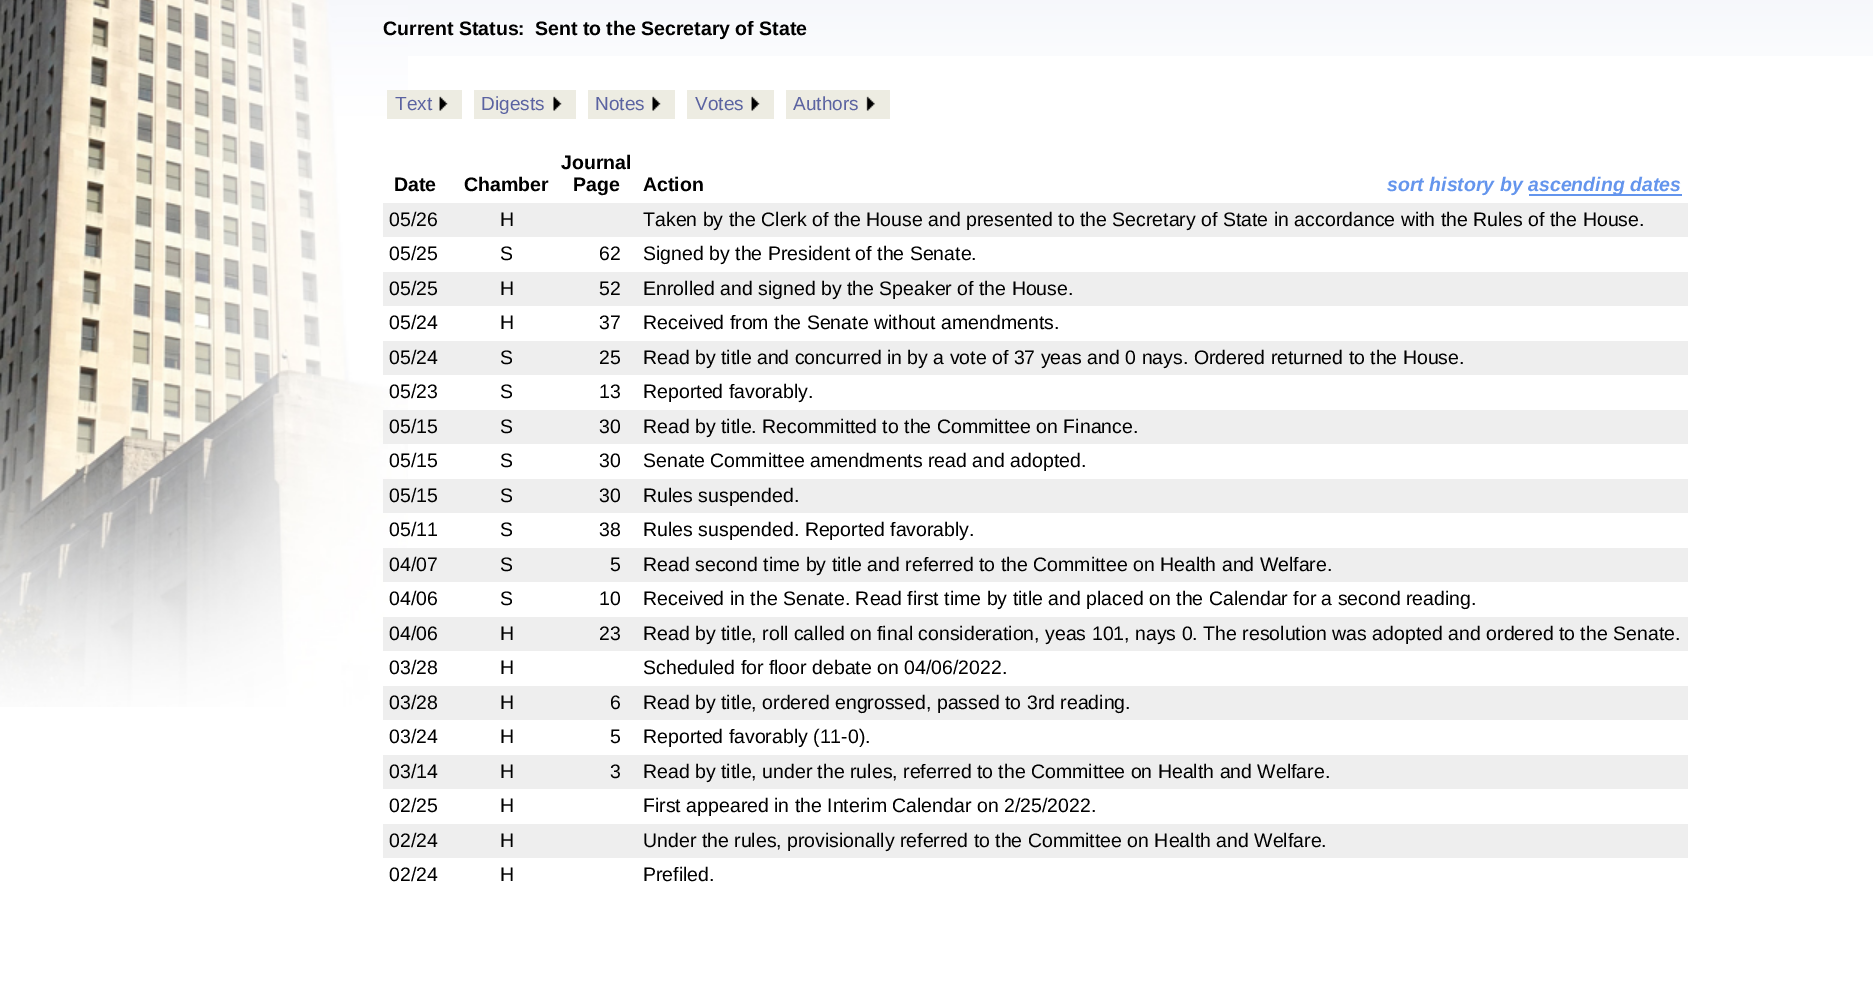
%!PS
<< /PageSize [1873 990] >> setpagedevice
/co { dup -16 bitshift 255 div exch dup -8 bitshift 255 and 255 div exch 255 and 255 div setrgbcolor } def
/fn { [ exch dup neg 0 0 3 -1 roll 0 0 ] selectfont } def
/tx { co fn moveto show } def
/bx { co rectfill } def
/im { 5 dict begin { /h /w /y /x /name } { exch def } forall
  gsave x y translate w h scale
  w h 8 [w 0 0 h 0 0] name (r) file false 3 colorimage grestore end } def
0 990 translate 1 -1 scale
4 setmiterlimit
0 0 1873 990 16#FFFFFF bx
(media/1.raw) 408 0 1465 56 im
(media/2.raw) 0 0 408 707 im
387 90 75 29 16#EDECE2 bx
(media/3.raw) 439 96 9 15 im
474 90 102 29 16#EDECE2 bx
(media/4.raw) 553 96 9 15 im
588 90 87 29 16#EDECE2 bx
(media/4.raw) 652 96 9 15 im
687 90 87 29 16#EDECE2 bx
(media/3.raw) 751 96 9 15 im
786 90 104 29 16#EDECE2 bx
(media/5.raw) 866 96 9 15 im
1529 194 153 2 16#6495ED bx
383 203 1305 34 16#EEEEEE bx
383 272 1305 34 16#EEEEEE bx
383 341 1305 34 16#EEEEEE bx
383 410 1305 34 16#EEEEEE bx
383 479 1305 34 16#EEEEEE bx
383 548 1305 34 16#EEEEEE bx
383 617 1305 34 16#EEEEEE bx
383 686 1305 34 16#EEEEEE bx
383 755 1305 34 16#EEEEEE bx
383 824 1305 34 16#EEEEEE bx
(Current Status:) 383 35 /LiberationSans-Bold 19.5 16#000000 tx
(Sent to the Secretary of State) 535 35 /LiberationSans-Bold 19.5 16#000000 tx
(Text) 395 110 /LiberationSans-Regular 19 16#5B63A1 tx
(Digests) 481 110 /LiberationSans-Regular 19 16#5B63A1 tx
(Notes) 595 110 /LiberationSans-Regular 19 16#5B63A1 tx
(Votes) 695 110 /LiberationSans-Regular 19 16#5B63A1 tx
(Authors) 793 110 /LiberationSans-Regular 19 16#5B63A1 tx
(Date) 394 191 /LiberationSans-Bold 19.5 16#000000 tx
(Chamber) 464 191 /LiberationSans-Bold 19.5 16#000000 tx
(Journal) 561 169 /LiberationSans-Bold 19.5 16#000000 tx
(Page) 573 191 /LiberationSans-Bold 19.5 16#000000 tx
(Action) 643 191 /LiberationSans-Bold 19.5 16#000000 tx
(sort history by) 1387 191 /LiberationSans-BoldItalic 19.5 16#6495ED tx
(ascending dates) 1528 191 /LiberationSans-BoldItalic 19.5 16#6495ED tx
(05/26) 389 226 /LiberationSans-Regular 19.5 16#000000 tx
(H) 500 226 /LiberationSans-Regular 19.5 16#000000 tx
(Taken by the Clerk of the House and presented to the Secretary of State in accordance with the Rules of the House.) 643 226 /LiberationSans-Regular 19.5 16#000000 tx
(05/25) 389 260 /LiberationSans-Regular 19.5 16#000000 tx
(S) 500 260 /LiberationSans-Regular 19.5 16#000000 tx
(62) 599 260 /LiberationSans-Regular 19.5 16#000000 tx
(Signed by the President of the Senate.) 643 260 /LiberationSans-Regular 19.5 16#000000 tx
(05/25) 389 295 /LiberationSans-Regular 19.5 16#000000 tx
(H) 500 295 /LiberationSans-Regular 19.5 16#000000 tx
(52) 599 295 /LiberationSans-Regular 19.5 16#000000 tx
(Enrolled and signed by the Speaker of the House.) 643 295 /LiberationSans-Regular 19.5 16#000000 tx
(05/24) 389 329 /LiberationSans-Regular 19.5 16#000000 tx
(H) 500 329 /LiberationSans-Regular 19.5 16#000000 tx
(37) 599 329 /LiberationSans-Regular 19.5 16#000000 tx
(Received from the Senate without amendments.) 643 329 /LiberationSans-Regular 19.5 16#000000 tx
(05/24) 389 364 /LiberationSans-Regular 19.5 16#000000 tx
(S) 500 364 /LiberationSans-Regular 19.5 16#000000 tx
(25) 599 364 /LiberationSans-Regular 19.5 16#000000 tx
(Read by title and concurred in by a vote of 37 yeas and 0 nays. Ordered returned to the House.) 643 364 /LiberationSans-Regular 19.5 16#000000 tx
(05/23) 389 398 /LiberationSans-Regular 19.5 16#000000 tx
(S) 500 398 /LiberationSans-Regular 19.5 16#000000 tx
(13) 599 398 /LiberationSans-Regular 19.5 16#000000 tx
(Reported favorably.) 643 398 /LiberationSans-Regular 19.5 16#000000 tx
(05/15) 389 433 /LiberationSans-Regular 19.5 16#000000 tx
(S) 500 433 /LiberationSans-Regular 19.5 16#000000 tx
(30) 599 433 /LiberationSans-Regular 19.5 16#000000 tx
(Read by title. Recommitted to the Committee on Finance.) 643 433 /LiberationSans-Regular 19.5 16#000000 tx
(05/15) 389 467 /LiberationSans-Regular 19.5 16#000000 tx
(S) 500 467 /LiberationSans-Regular 19.5 16#000000 tx
(30) 599 467 /LiberationSans-Regular 19.5 16#000000 tx
(Senate Committee amendments read and adopted.) 643 467 /LiberationSans-Regular 19.5 16#000000 tx
(05/15) 389 502 /LiberationSans-Regular 19.5 16#000000 tx
(S) 500 502 /LiberationSans-Regular 19.5 16#000000 tx
(30) 599 502 /LiberationSans-Regular 19.5 16#000000 tx
(Rules suspended.) 643 502 /LiberationSans-Regular 19.5 16#000000 tx
(05/11) 389 536 /LiberationSans-Regular 19.5 16#000000 tx
(S) 500 536 /LiberationSans-Regular 19.5 16#000000 tx
(38) 599 536 /LiberationSans-Regular 19.5 16#000000 tx
(Rules suspended. Reported favorably.) 643 536 /LiberationSans-Regular 19.5 16#000000 tx
(04/07) 389 571 /LiberationSans-Regular 19.5 16#000000 tx
(S) 500 571 /LiberationSans-Regular 19.5 16#000000 tx
(5) 610 571 /LiberationSans-Regular 19.5 16#000000 tx
(Read second time by title and referred to the Committee on Health and Welfare.) 643 571 /LiberationSans-Regular 19.5 16#000000 tx
(04/06) 389 605 /LiberationSans-Regular 19.5 16#000000 tx
(S) 500 605 /LiberationSans-Regular 19.5 16#000000 tx
(10) 599 605 /LiberationSans-Regular 19.5 16#000000 tx
(Received in the Senate. Read first time by title and placed on the Calendar for a second reading.) 643 605 /LiberationSans-Regular 19.5 16#000000 tx
(04/06) 389 640 /LiberationSans-Regular 19.5 16#000000 tx
(H) 500 640 /LiberationSans-Regular 19.5 16#000000 tx
(23) 599 640 /LiberationSans-Regular 19.5 16#000000 tx
(Read by title, roll called on final consideration, yeas 101, nays 0. The resolution was adopted and ordered to the Senate.) 643 640 /LiberationSans-Regular 19.5 16#000000 tx
(03/28) 389 674 /LiberationSans-Regular 19.5 16#000000 tx
(H) 500 674 /LiberationSans-Regular 19.5 16#000000 tx
(Scheduled for floor debate on 04/06/2022.) 643 674 /LiberationSans-Regular 19.5 16#000000 tx
(03/28) 389 709 /LiberationSans-Regular 19.5 16#000000 tx
(H) 500 709 /LiberationSans-Regular 19.5 16#000000 tx
(6) 610 709 /LiberationSans-Regular 19.5 16#000000 tx
(Read by title, ordered engrossed, passed to 3rd reading.) 643 709 /LiberationSans-Regular 19.5 16#000000 tx
(03/24) 389 743 /LiberationSans-Regular 19.5 16#000000 tx
(H) 500 743 /LiberationSans-Regular 19.5 16#000000 tx
(5) 610 743 /LiberationSans-Regular 19.5 16#000000 tx
(Reported favorably \(11-0\).) 643 743 /LiberationSans-Regular 19.5 16#000000 tx
(03/14) 389 778 /LiberationSans-Regular 19.5 16#000000 tx
(H) 500 778 /LiberationSans-Regular 19.5 16#000000 tx
(3) 610 778 /LiberationSans-Regular 19.5 16#000000 tx
(Read by title, under the rules, referred to the Committee on Health and Welfare.) 643 778 /LiberationSans-Regular 19.5 16#000000 tx
(02/25) 389 812 /LiberationSans-Regular 19.5 16#000000 tx
(H) 500 812 /LiberationSans-Regular 19.5 16#000000 tx
(First appeared in the Interim Calendar on 2/25/2022.) 643 812 /LiberationSans-Regular 19.5 16#000000 tx
(02/24) 389 847 /LiberationSans-Regular 19.5 16#000000 tx
(H) 500 847 /LiberationSans-Regular 19.5 16#000000 tx
(Under the rules, provisionally referred to the Committee on Health and Welfare.) 643 847 /LiberationSans-Regular 19.5 16#000000 tx
(02/24) 389 881 /LiberationSans-Regular 19.5 16#000000 tx
(H) 500 881 /LiberationSans-Regular 19.5 16#000000 tx
(Prefiled.) 643 881 /LiberationSans-Regular 19.5 16#000000 tx
showpage
